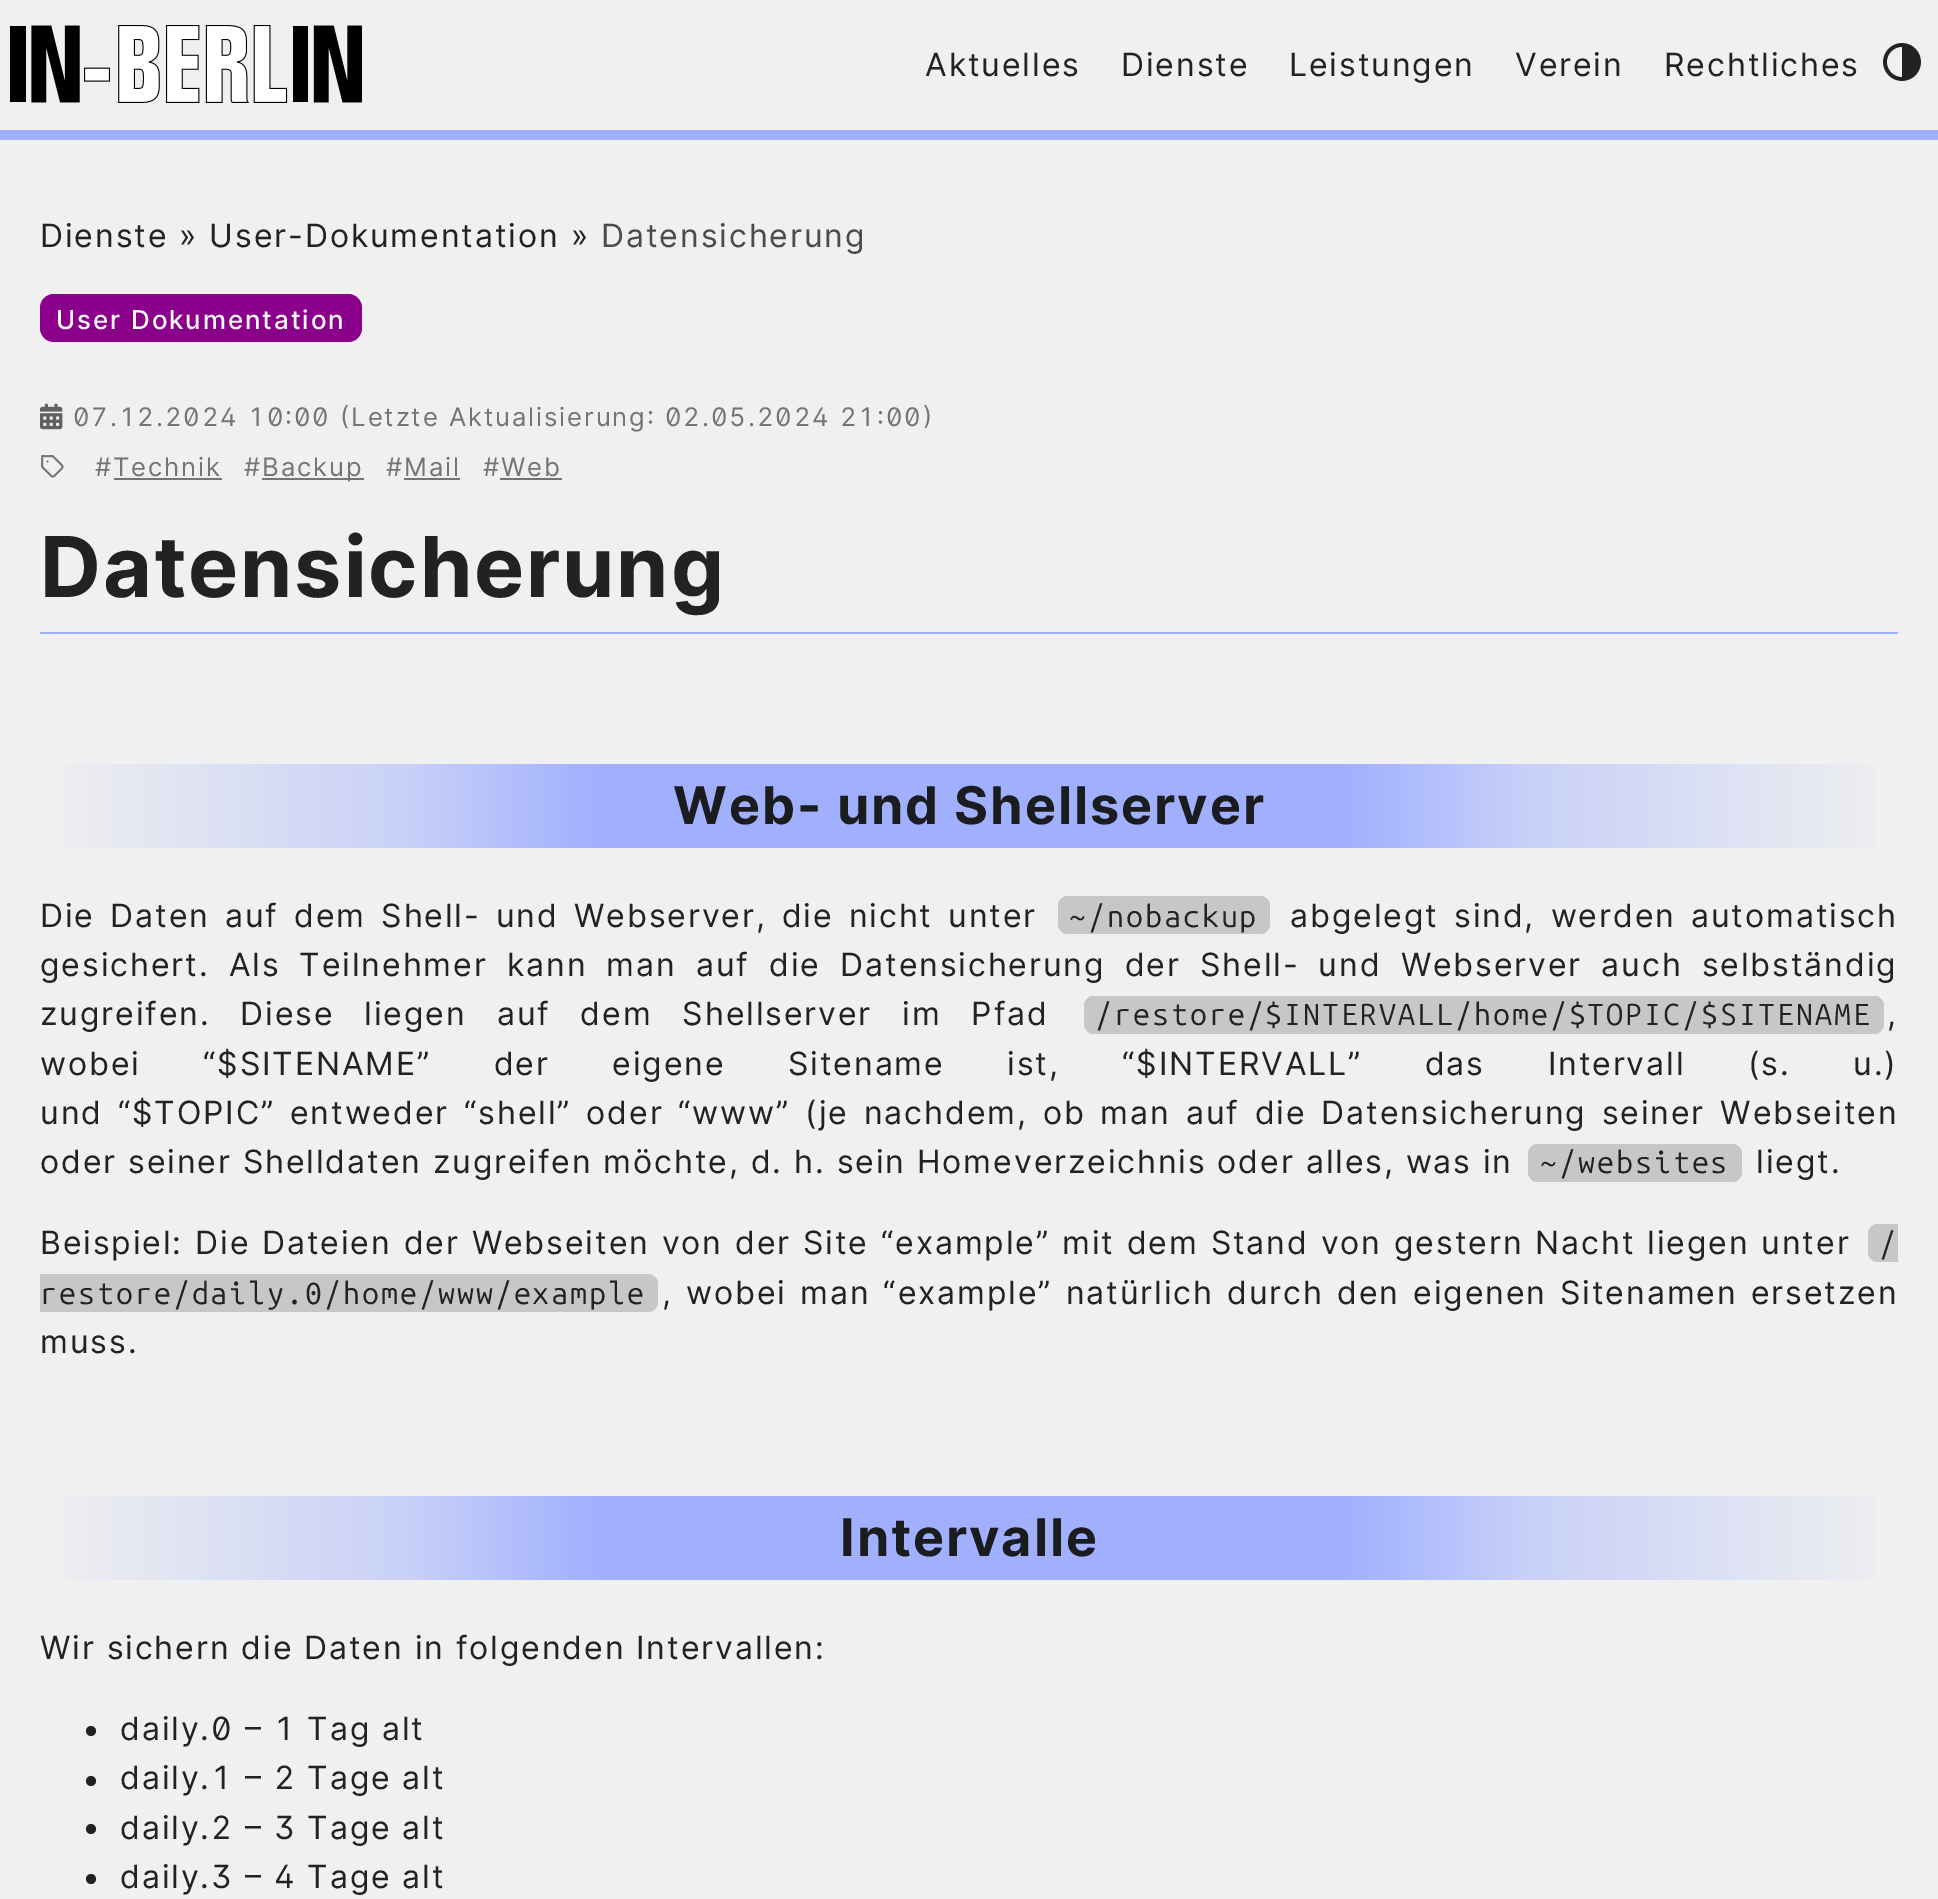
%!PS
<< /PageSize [1938 1899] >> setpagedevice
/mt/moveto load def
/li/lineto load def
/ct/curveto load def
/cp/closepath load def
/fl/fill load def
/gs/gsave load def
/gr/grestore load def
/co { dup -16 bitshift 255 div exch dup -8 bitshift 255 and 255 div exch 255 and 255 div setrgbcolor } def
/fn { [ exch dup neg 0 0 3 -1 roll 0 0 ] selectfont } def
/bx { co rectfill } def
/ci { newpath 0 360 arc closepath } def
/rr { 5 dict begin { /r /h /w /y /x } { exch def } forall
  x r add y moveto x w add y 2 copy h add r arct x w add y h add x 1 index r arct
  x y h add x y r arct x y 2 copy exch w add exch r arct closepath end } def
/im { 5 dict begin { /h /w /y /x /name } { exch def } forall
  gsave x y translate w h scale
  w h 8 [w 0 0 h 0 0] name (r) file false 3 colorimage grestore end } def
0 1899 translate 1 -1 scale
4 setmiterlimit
0 0 1938 1899 16#F0F0F0 bx
(media/1.raw) 10 25 352 78 im
(media/2.raw) 1883 43 38 38 im
0 130 1938 10 16#A0B0FF bx
16#8B008B co
40 294 322 48 14 rr fl
(media/3.raw) 40 403 23 27 im
(media/4.raw) 41 455 23 23 im
114 478 108 2 16#747474 bx
262 478 102 2 16#747474 bx
404 478 56 2 16#747474 bx
500 478 62 2 16#747474 bx
40 632 1858 2 16#A0B0FF bx
gs 63 764 mt 1875 764 li 1875 848 li 63 848 li cp clip newpath
<< /ShadingType 2 /ColorSpace /DeviceRGB /Coords [40 806 1898 806] /Extend [true true] /Function << /FunctionType 3 /Domain [0 1] /Functions [<< /FunctionType 2 /Domain [0 1] /C0 [.941 .941 .941] /C1 [.784 .816 .973] /N 1 >> << /FunctionType 2 /Domain [0 1] /C0 [.784 .816 .973] /C1 [.627 .69 1] /N 1 >> << /FunctionType 2 /Domain [0 1] /C0 [.627 .69 1] /C1 [.627 .69 1] /N 1 >> << /FunctionType 2 /Domain [0 1] /C0 [.627 .69 1] /C1 [.784 .816 .973] /N 1 >> << /FunctionType 2 /Domain [0 1] /C0 [.784 .816 .973] /C1 [.941 .941 .941] /N 1 >>] /Bounds [.2 .3 .7 .8] /Encode [0 1 0 1 0 1 0 1 0 1] >> >> shfill gr
16#C7C7C7 co
1058 896 212 38 10 rr fl
1084 996 800 38 10 rr fl
1528 1144 214 38 10 rr fl
1878 1224 mt 1898 1224 li 1898 1262 li 1878 1262 li 1872.5 1262 1868 1257.5 1868 1252 ct 1868 1234 li 1868 1228.5 1872.5 1224 1878 1224 ct cp fl
40 1274 mt 648 1274 li 653.5 1274 658 1278.5 658 1284 ct 658 1302 li 658 1307.5 653.5 1312 648 1312 ct 40 1312 li cp fl
gs 63 1496 mt 1875 1496 li 1875 1580 li 63 1580 li cp clip newpath
<< /ShadingType 2 /ColorSpace /DeviceRGB /Coords [40 1538 1898 1538] /Extend [true true] /Function << /FunctionType 3 /Domain [0 1] /Functions [<< /FunctionType 2 /Domain [0 1] /C0 [.941 .941 .941] /C1 [.784 .816 .973] /N 1 >> << /FunctionType 2 /Domain [0 1] /C0 [.784 .816 .973] /C1 [.627 .69 1] /N 1 >> << /FunctionType 2 /Domain [0 1] /C0 [.627 .69 1] /C1 [.627 .69 1] /N 1 >> << /FunctionType 2 /Domain [0 1] /C0 [.627 .69 1] /C1 [.784 .816 .973] /N 1 >> << /FunctionType 2 /Domain [0 1] /C0 [.784 .816 .973] /C1 [.941 .941 .941] /N 1 >>] /Bounds [.2 .3 .7 .8] /Encode [0 1 0 1 0 1 0 1 0 1] >> >> shfill gr
16#222222 co
91 1731 5 ci fl
91 1781 5 ci fl
91 1829 5 ci fl
91 1879 5 ci fl
/Inter-Regular 32 fn
925 76 mt 1.92 0 (Aktuelles) ashow
1121 76 mt 1.92 0 (Dienste) ashow
1289 76 mt 1.92 0 (Leistungen) ashow
1515 76 mt 1.92 0 (Verein) ashow
1664 76 mt 1.92 0 (Rechtliches) ashow
40 247 mt 1.92 0 (Dienste » User-Dokumentation ») ashow
16#4B4B4B co
601 247 mt 1.92 0 (Datensicherung) ashow
/Inter-Medium 26 fn
16#F9F9F9 co
56 329 mt 1.92 0 (User Dokumentation) ashow
/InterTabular-Regular 25.6 fn
16#747474 co
73 426 mt 1.92 0 (07.12.2024 10:00 \(Letzte Aktualisierung: 02.05.2024 21:00\)) ashow
/Inter-Regular 25.6 fn
95 476 mt 1.92 0 (#Technik) ashow
244 476 mt 1.92 0 (#) ashow
262 476 mt 1.92 0 (Backup) ashow
386 476 mt 1.92 0 (#Mail) ashow
483 476 mt 1.92 0 (#Web) ashow
/Inter-Bold 84 fn
16#222222 co
40 597 mt 1.92 0 (Datensicherung) ashow
/Inter-Bold 52 fn
16#1B1C1D co
673 824 mt 1.92 0 (Web- und Shellserver) ashow
/Inter-Regular 32 fn
16#222222 co
40 927 mt 4.25 0 32 1.92 0 (Die Daten auf dem Shell- und Webserver, die nicht unter) awidthshow
/UbuntuMono-Regular 30.4 fn
1069 927 mt 1.92 0 (~/nobackup) ashow
/Inter-Regular 32 fn
1290 927 mt 4.25 0 32 1.92 0 (abgelegt sind, werden automatisch) awidthshow
40 976 mt 8.25 0 32 1.92 0 (gesichert. Als Teilnehmer kann man auf die Datensicherung der Shell- und Webserver auch selbständig) awidthshow
40 1025 mt 19 0 32 1.92 0 (zugreifen. Diese liegen auf dem Shellserver im Pfad) awidthshow
/UbuntuMono-Regular 30.4 fn
1095 1025 mt 1.92 0 (/restore/$INTERVALL/home/$TOPIC/$SITENAME) ashow
/Inter-Regular 32 fn
1887 1025 mt 1.92 0 (,) ashow
40 1075 mt 51.6 0 32 1.92 0 (wobei “$SITENAME” der eigene Sitename ist, “$INTERVALL” das Intervall \(s. u.\)) awidthshow
40 1124 mt 4 0 32 1.92 0 (und “$TOPIC” entweder “shell” oder “www” \(je nachdem, ob man auf die Datensicherung seiner Webseiten) awidthshow
40 1173 mt 1.92 0 (oder seiner Shelldaten zugreifen möchte, d. h. sein Homeverzeichnis oder alles, was in) ashow
/UbuntuMono-Regular 30.4 fn
1540 1173 mt 1.92 0 (~/websites) ashow
/Inter-Regular 32 fn
1756 1173 mt 1.92 0 (liegt.) ashow
40 1254 mt 1 0 32 1.92 0 (Beispiel: Die Dateien der Webseiten von der Site “example” mit dem Stand von gestern Nacht liegen unter) awidthshow
/UbuntuMono-Regular 30.4 fn
1879 1254 mt 1.92 0 (/) ashow
40 1304 mt 1.92 0 (restore/daily.0/home/www/example) ashow
/Inter-Regular 32 fn
662 1304 mt 2.25 0 32 1.92 0 (, wobei man “example” natürlich durch den eigenen Sitenamen ersetzen) awidthshow
40 1353 mt 1.92 0 (muss.) ashow
/Inter-Bold 52 fn
16#1B1C1D co
840 1556 mt 1.92 0 (Intervalle) ashow
/Inter-Regular 32 fn
16#222222 co
40 1659 mt 1.92 0 (Wir sichern die Daten in folgenden Intervallen:) ashow
/InterTabular-Regular 32 fn
120 1740 mt 1.92 0 (daily.0 – 1 Tag alt) ashow
120 1789 mt 1.92 0 (daily.1 – 2 Tage alt) ashow
120 1839 mt 1.92 0 (daily.2 – 3 Tage alt) ashow
120 1888 mt 1.92 0 (daily.3 – 4 Tage alt) ashow
showpage
